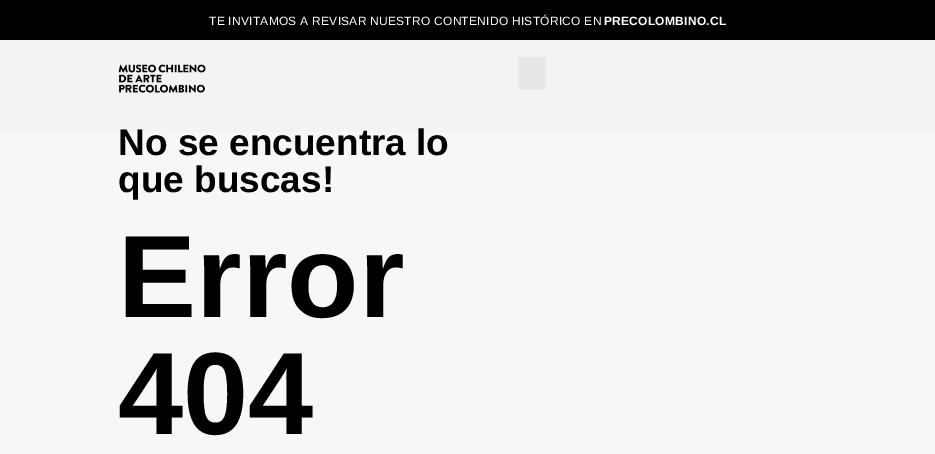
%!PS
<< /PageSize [935 454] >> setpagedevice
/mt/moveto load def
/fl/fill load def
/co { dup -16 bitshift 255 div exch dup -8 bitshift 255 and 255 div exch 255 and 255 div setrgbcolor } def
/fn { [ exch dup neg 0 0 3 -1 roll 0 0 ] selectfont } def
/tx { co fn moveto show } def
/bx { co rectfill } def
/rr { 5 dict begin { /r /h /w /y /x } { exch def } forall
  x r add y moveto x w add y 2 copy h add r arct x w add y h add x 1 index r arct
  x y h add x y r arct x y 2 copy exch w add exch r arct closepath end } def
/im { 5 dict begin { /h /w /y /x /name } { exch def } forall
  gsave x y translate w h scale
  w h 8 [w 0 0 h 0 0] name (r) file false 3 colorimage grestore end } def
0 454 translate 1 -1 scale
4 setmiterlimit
0 0 935 454 16#F7F7F7 bx
0 0 935 40 16#000000 bx
0 40 935 92 16#F4F2F2 bx
(media/1.raw) 118 64 88 29 im
16#E8E6E6 co
518 57 28 33 3 rr fl
/LiberationSans-Regular 12 fn
16#FFFFFF co
209 25 mt .25 0 (TE INVITAMOS A REVISAR NUESTRO CONTENIDO HISTÓRICO EN) ashow
/LiberationSans-Bold 12 fn
604 25 mt .25 0 (PRECOLOMBINO.CL) ashow
(No se encuentra lo) 118 155 /LiberationSans-Bold 37 16#000000 tx
(que buscas!) 118 192 /LiberationSans-Bold 37 16#000000 tx
(Error) 118 317 /LiberationSans-Bold 117 16#000000 tx
(404) 118 434 /LiberationSans-Bold 117 16#000000 tx
showpage
